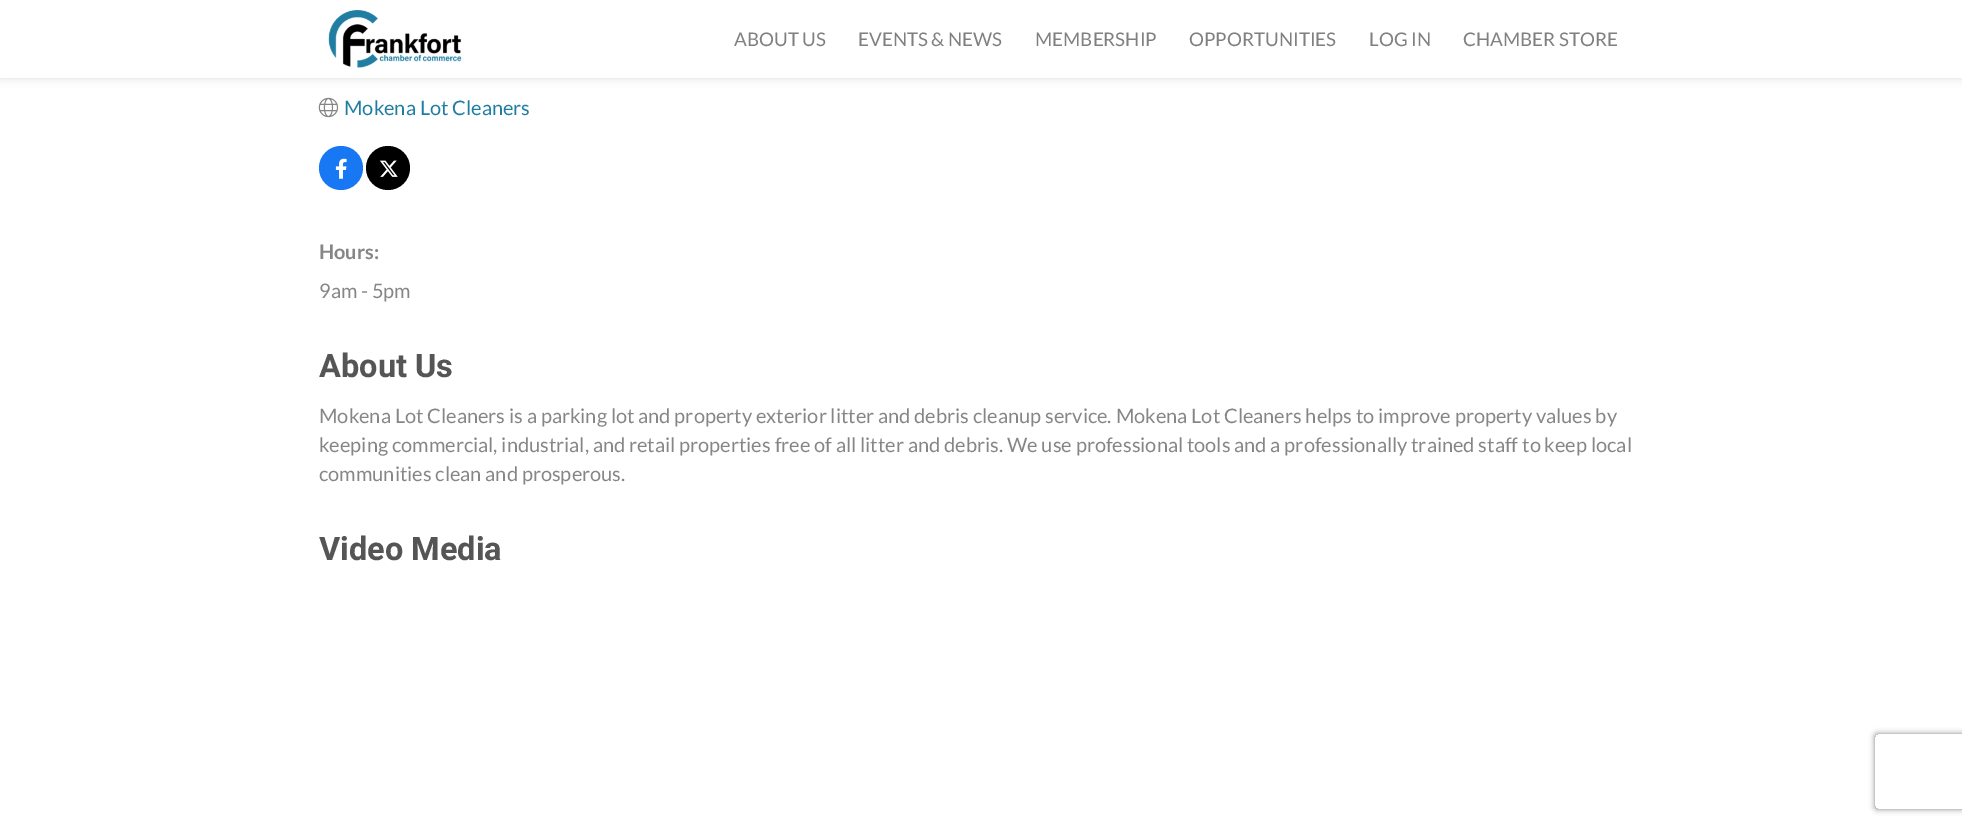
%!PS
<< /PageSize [1962 826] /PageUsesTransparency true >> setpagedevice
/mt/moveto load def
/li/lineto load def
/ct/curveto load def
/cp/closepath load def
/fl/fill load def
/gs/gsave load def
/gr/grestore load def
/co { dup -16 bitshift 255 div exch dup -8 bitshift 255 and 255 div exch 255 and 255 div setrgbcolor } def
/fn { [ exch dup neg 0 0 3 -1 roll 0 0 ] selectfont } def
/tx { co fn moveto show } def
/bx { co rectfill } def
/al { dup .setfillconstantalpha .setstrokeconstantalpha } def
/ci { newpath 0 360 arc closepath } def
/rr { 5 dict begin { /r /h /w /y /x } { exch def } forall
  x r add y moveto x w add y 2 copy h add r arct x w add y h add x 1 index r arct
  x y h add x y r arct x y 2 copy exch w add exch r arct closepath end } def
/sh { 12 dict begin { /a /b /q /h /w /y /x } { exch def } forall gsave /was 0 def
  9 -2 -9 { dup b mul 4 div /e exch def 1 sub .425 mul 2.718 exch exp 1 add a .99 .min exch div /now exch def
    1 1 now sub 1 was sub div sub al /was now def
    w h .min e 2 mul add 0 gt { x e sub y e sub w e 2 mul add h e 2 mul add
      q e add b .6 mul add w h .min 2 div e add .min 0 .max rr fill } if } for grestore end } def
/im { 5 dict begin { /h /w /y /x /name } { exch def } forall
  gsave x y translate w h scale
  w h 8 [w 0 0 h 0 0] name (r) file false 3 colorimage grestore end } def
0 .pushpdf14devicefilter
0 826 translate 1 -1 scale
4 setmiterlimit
0 0 1962 826 16#FFFFFF bx
16#000000 co
0 0 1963 79 0 4.5 .1 sh
0 0 1962 78 16#FFFFFF bx
0 78 1962 1 16#EEEEEE bx
(media/1.raw) 328 10 134 58 im
(media/2.raw) 318 97 21 21 im
16#1877F2 co
341 168 22 ci fl
(media/3.raw) 335 158 12 21 im
16#000000 co
388 168 22 ci fl
(media/4.raw) 379 160 19 17 im
gs
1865 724 mt 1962 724 li 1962 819 li 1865 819 li cp 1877.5 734 mt 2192.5 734 li 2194 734 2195 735 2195 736.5 ct 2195 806.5 li 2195 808 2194 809 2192.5 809 ct 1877.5 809 li 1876 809 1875 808 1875 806.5 ct 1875 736.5 li 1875 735 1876 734 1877.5 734 ct cp eoclip newpath
16#808080 co
1875 734 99 75 2.5 3 1 sh
gr
(ABOUT US) 734 46 /Lato-Regular 18.75 16#808080 tx
(EVENTS & NEWS) 858 46 /Lato-Regular 18.75 16#808080 tx
(MEMBERSHIP) 1035 46 /Lato-Regular 18.75 16#808080 tx
(OPPORTUNITIES) 1189 46 /Lato-Regular 18.75 16#808080 tx
(LOG IN) 1369 46 /Lato-Regular 18.75 16#808080 tx
(CHAMBER STORE) 1463 46 /Lato-Regular 18.75 16#808080 tx
(Mokena Lot Cleaners) 344 115 /Lato-Regular 20 16#1E7EA2 tx
(Hours:) 319 259 /Lato-Bold 20 16#868686 tx
(9am - 5pm) 319 298 /Lato-Regular 20 16#868686 tx
(About Us) 319 377 /Heebo-Bold 32.5 16#555555 tx
(Mokena Lot Cleaners is a parking lot and property exterior litter and debris cleanup service. Mokena Lot Cleaners helps to improve property values by) 319 423 /Lato-Regular 20 16#868686 tx
(keeping commercial, industrial, and retail properties free of all litter and debris. We use professional tools and a professionally trained staff to keep local) 319 452 /Lato-Regular 20 16#868686 tx
(communities clean and prosperous.) 319 481 /Lato-Regular 20 16#868686 tx
(Video Media) 319 560 /Heebo-Bold 32.5 16#555555 tx
.poppdf14devicefilter showpage
